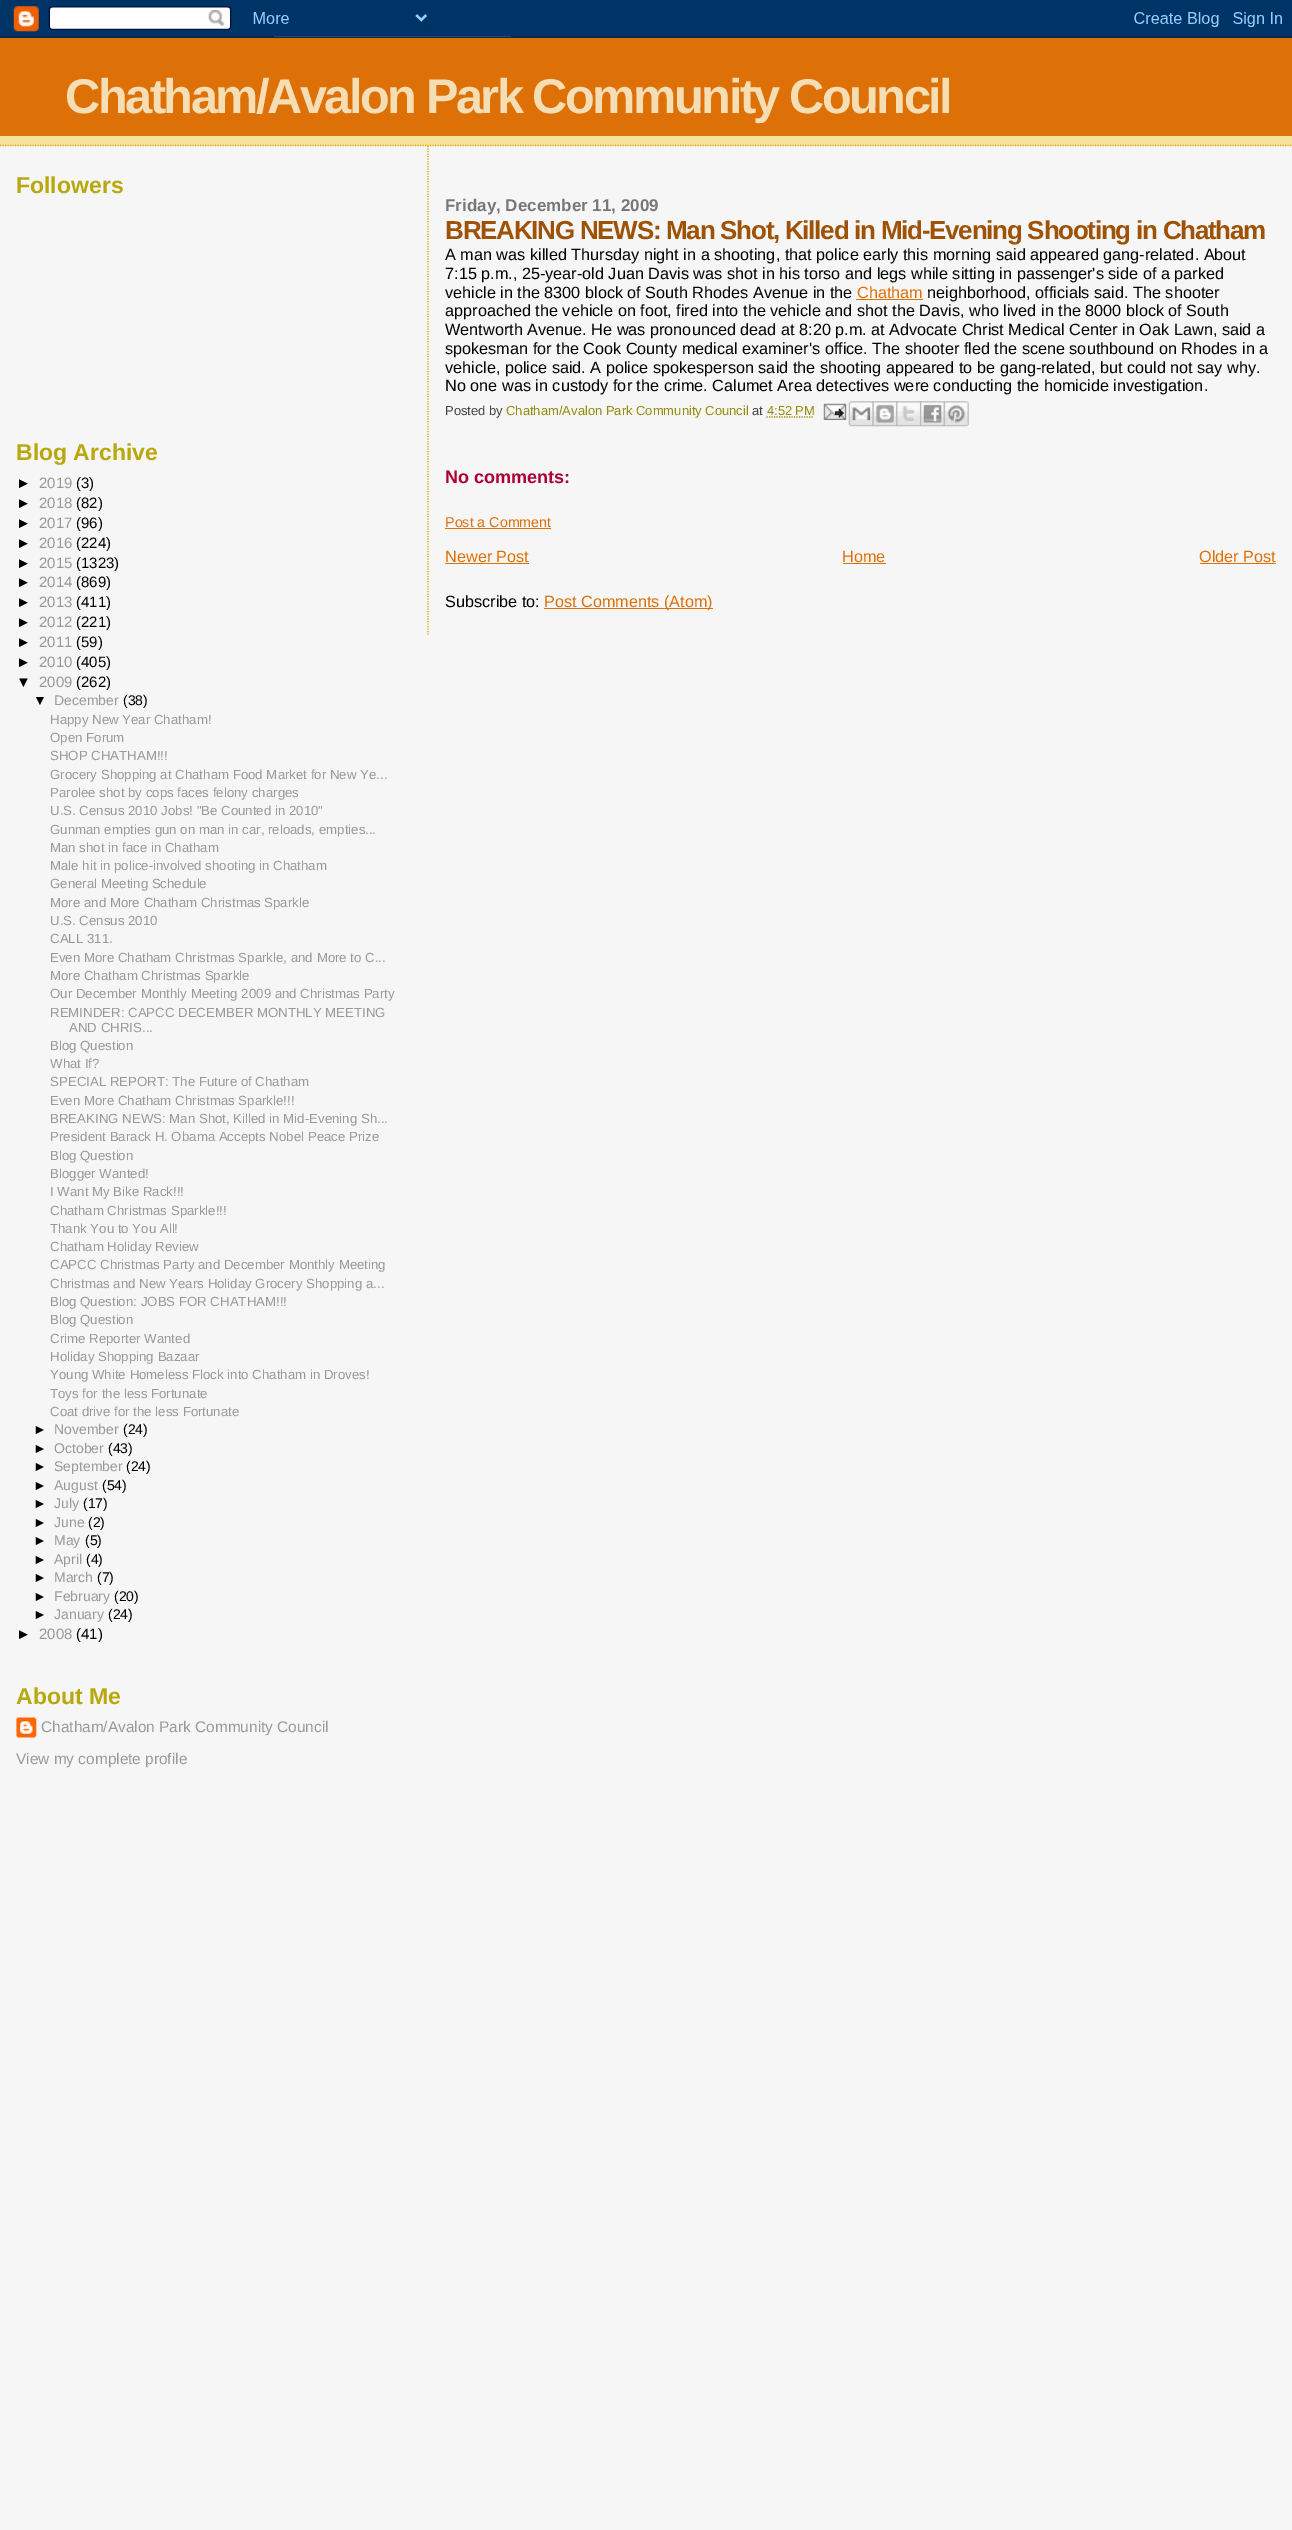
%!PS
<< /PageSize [1292 2530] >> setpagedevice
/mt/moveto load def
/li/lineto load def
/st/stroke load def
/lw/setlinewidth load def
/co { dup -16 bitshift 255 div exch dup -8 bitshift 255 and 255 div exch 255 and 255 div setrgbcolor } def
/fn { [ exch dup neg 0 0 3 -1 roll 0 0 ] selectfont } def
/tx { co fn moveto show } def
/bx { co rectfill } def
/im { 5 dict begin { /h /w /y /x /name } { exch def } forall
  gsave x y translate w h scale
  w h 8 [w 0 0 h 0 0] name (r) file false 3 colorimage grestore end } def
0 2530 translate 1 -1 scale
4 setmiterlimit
0 0 1292 2530 16#F6F6F6 bx
(media/1.raw) 0 0 1292 38 im
0 136 1292 10 16#F5E39E bx
16#E0AD12 co
1.2 lw
[1.25 1.25] 0 setdash
0 145.5 mt 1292.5 145.5 li st
0 38 1292 98 16#DE7008 bx
(media/2.raw) 16 1717 21 21 im
16#E0AD12 co
428 146 mt 428 635 li st
856 299 67 1 16#DE7008 bx
16#968A0A co
766.5 417 mt 814 417 li st
(media/3.raw) 823 403 24 17 im
(media/4.raw) 848 401 26 26 im
(media/5.raw) 872 401 26 26 im
(media/6.raw) 896 401 26 26 im
(media/7.raw) 920 401 25 26 im
(media/8.raw) 943 401 26 26 im
445 528 106 1 16#DE7008 bx
445 563 84 1 16#DE7008 bx
843 563 43 1 16#DE7008 bx
1200 563 76 1 16#DE7008 bx
544 608 169 1 16#DE7008 bx
/LiberationSans-Bold 48.75 fn
16#F5DEB3 co
65 113 mt -2.5 0 (Chatham/Avalon Park Community Council) ashow
(Followers) 16 193 /LiberationSans-Bold 23 16#B8A80D tx
(Blog Archive) 16 460 /LiberationSans-Bold 23 16#B8A80D tx
(►) 16 488 /LiberationSans-Regular 15 16#000000 tx
(2019) 39 488 /LiberationSans-Regular 15 16#999999 tx
(\(3\)) 76 488 /LiberationSans-Regular 15 16#000000 tx
(►) 16 508 /LiberationSans-Regular 15 16#000000 tx
(2018) 39 508 /LiberationSans-Regular 15 16#999999 tx
(\(82\)) 76 508 /LiberationSans-Regular 15 16#000000 tx
(►) 16 528 /LiberationSans-Regular 15 16#000000 tx
(2017) 39 528 /LiberationSans-Regular 15 16#999999 tx
(\(96\)) 76 528 /LiberationSans-Regular 15 16#000000 tx
(►) 16 548 /LiberationSans-Regular 15 16#000000 tx
(2016) 39 548 /LiberationSans-Regular 15 16#999999 tx
(\(224\)) 76 548 /LiberationSans-Regular 15 16#000000 tx
(►) 16 568 /LiberationSans-Regular 15 16#000000 tx
(2015) 39 568 /LiberationSans-Regular 15 16#999999 tx
(\(1323\)) 76 568 /LiberationSans-Regular 15 16#000000 tx
(►) 16 587 /LiberationSans-Regular 15 16#000000 tx
(2014) 39 587 /LiberationSans-Regular 15 16#999999 tx
(\(869\)) 76 587 /LiberationSans-Regular 15 16#000000 tx
(►) 16 607 /LiberationSans-Regular 15 16#000000 tx
(2013) 39 607 /LiberationSans-Regular 15 16#999999 tx
(\(411\)) 76 607 /LiberationSans-Regular 15 16#000000 tx
(►) 16 627 /LiberationSans-Regular 15 16#000000 tx
(2012) 39 627 /LiberationSans-Regular 15 16#999999 tx
(\(221\)) 76 627 /LiberationSans-Regular 15 16#000000 tx
(►) 16 647 /LiberationSans-Regular 15 16#000000 tx
(2011) 39 647 /LiberationSans-Regular 15 16#999999 tx
(\(59\)) 76 647 /LiberationSans-Regular 15 16#000000 tx
(►) 16 667 /LiberationSans-Regular 15 16#000000 tx
(2010) 39 667 /LiberationSans-Regular 15 16#999999 tx
(\(405\)) 76 667 /LiberationSans-Regular 15 16#000000 tx
(▼) 16 687 /LiberationSans-Regular 15 16#000000 tx
(2009) 39 687 /LiberationSans-Regular 15 16#999999 tx
(\(262\)) 76 687 /LiberationSans-Regular 15 16#000000 tx
(▼) 33 705 /LiberationSans-Regular 14 16#000000 tx
(December) 54 705 /LiberationSans-Regular 14 16#999999 tx
(\(38\)) 123 705 /LiberationSans-Regular 14 16#000000 tx
(Happy New Year Chatham!) 50 724 /LiberationSans-Regular 13.25 16#999999 tx
(Open Forum) 50 742 /LiberationSans-Regular 13.25 16#999999 tx
(SHOP CHATHAM!!!) 50 760 /LiberationSans-Regular 13.25 16#999999 tx
(Grocery Shopping at Chatham Food Market for New Ye...) 50 779 /LiberationSans-Regular 13.25 16#999999 tx
(Parolee shot by cops faces felony charges) 50 797 /LiberationSans-Regular 13.25 16#999999 tx
(U.S. Census 2010 Jobs! "Be Counted in 2010") 50 815 /LiberationSans-Regular 13.25 16#999999 tx
(Gunman empties gun on man in car, reloads, empties...) 50 834 /LiberationSans-Regular 13.25 16#999999 tx
(Man shot in face in Chatham) 50 852 /LiberationSans-Regular 13.25 16#999999 tx
(Male hit in police-involved shooting in Chatham) 50 870 /LiberationSans-Regular 13.25 16#999999 tx
(General Meeting Schedule) 50 888 /LiberationSans-Regular 13.25 16#999999 tx
(More and More Chatham Christmas Sparkle) 50 907 /LiberationSans-Regular 13.25 16#999999 tx
(U.S. Census 2010) 50 925 /LiberationSans-Regular 13.25 16#999999 tx
(CALL 311.) 50 943 /LiberationSans-Regular 13.25 16#999999 tx
(Even More Chatham Christmas Sparkle, and More to C...) 50 962 /LiberationSans-Regular 13.25 16#999999 tx
(More Chatham Christmas Sparkle) 50 980 /LiberationSans-Regular 13.25 16#999999 tx
(Our December Monthly Meeting 2009 and Christmas Party) 50 998 /LiberationSans-Regular 13.25 16#999999 tx
(REMINDER: CAPCC DECEMBER MONTHLY MEETING) 50 1017 /LiberationSans-Regular 13.25 16#999999 tx
(AND CHRIS...) 69 1032 /LiberationSans-Regular 13.25 16#999999 tx
(Blog Question) 50 1050 /LiberationSans-Regular 13.25 16#999999 tx
(What If?) 50 1068 /LiberationSans-Regular 13.25 16#999999 tx
(SPECIAL REPORT: The Future of Chatham) 50 1086 /LiberationSans-Regular 13.25 16#999999 tx
(Even More Chatham Christmas Sparkle!!!) 50 1105 /LiberationSans-Regular 13.25 16#999999 tx
(BREAKING NEWS: Man Shot, Killed in Mid-Evening Sh...) 50 1123 /LiberationSans-Regular 13.25 16#999999 tx
(President Barack H. Obama Accepts Nobel Peace Prize) 50 1141 /LiberationSans-Regular 13.25 16#999999 tx
(Blog Question) 50 1160 /LiberationSans-Regular 13.25 16#999999 tx
(Blogger Wanted!) 50 1178 /LiberationSans-Regular 13.25 16#999999 tx
(I Want My Bike Rack!!!) 50 1196 /LiberationSans-Regular 13.25 16#999999 tx
(Chatham Christmas Sparkle!!!) 50 1215 /LiberationSans-Regular 13.25 16#999999 tx
(Thank You to You All!) 50 1233 /LiberationSans-Regular 13.25 16#999999 tx
(Chatham Holiday Review) 50 1251 /LiberationSans-Regular 13.25 16#999999 tx
(CAPCC Christmas Party and December Monthly Meeting) 50 1269 /LiberationSans-Regular 13.25 16#999999 tx
(Christmas and New Years Holiday Grocery Shopping a...) 50 1288 /LiberationSans-Regular 13.25 16#999999 tx
(Blog Question: JOBS FOR CHATHAM!!!) 50 1306 /LiberationSans-Regular 13.25 16#999999 tx
(Blog Question) 50 1324 /LiberationSans-Regular 13.25 16#999999 tx
(Crime Reporter Wanted) 50 1343 /LiberationSans-Regular 13.25 16#999999 tx
(Holiday Shopping Bazaar) 50 1361 /LiberationSans-Regular 13.25 16#999999 tx
(Young White Homeless Flock into Chatham in Droves!) 50 1379 /LiberationSans-Regular 13.25 16#999999 tx
(Toys for the less Fortunate) 50 1398 /LiberationSans-Regular 13.25 16#999999 tx
(Coat drive for the less Fortunate) 50 1416 /LiberationSans-Regular 13.25 16#999999 tx
(►) 33 1434 /LiberationSans-Regular 14 16#000000 tx
(November) 54 1434 /LiberationSans-Regular 14 16#999999 tx
(\(24\)) 123 1434 /LiberationSans-Regular 14 16#000000 tx
(►) 33 1453 /LiberationSans-Regular 14 16#000000 tx
(October) 54 1453 /LiberationSans-Regular 14 16#999999 tx
(\(43\)) 108 1453 /LiberationSans-Regular 14 16#000000 tx
(►) 33 1471 /LiberationSans-Regular 14 16#000000 tx
(September) 54 1471 /LiberationSans-Regular 14 16#999999 tx
(\(24\)) 126 1471 /LiberationSans-Regular 14 16#000000 tx
(►) 33 1490 /LiberationSans-Regular 14 16#000000 tx
(August) 54 1490 /LiberationSans-Regular 14 16#999999 tx
(\(54\)) 102 1490 /LiberationSans-Regular 14 16#000000 tx
(►) 33 1508 /LiberationSans-Regular 14 16#000000 tx
(July) 54 1508 /LiberationSans-Regular 14 16#999999 tx
(\(17\)) 83 1508 /LiberationSans-Regular 14 16#000000 tx
(►) 33 1527 /LiberationSans-Regular 14 16#000000 tx
(June) 54 1527 /LiberationSans-Regular 14 16#999999 tx
(\(2\)) 88 1527 /LiberationSans-Regular 14 16#000000 tx
(►) 33 1545 /LiberationSans-Regular 14 16#000000 tx
(May) 54 1545 /LiberationSans-Regular 14 16#999999 tx
(\(5\)) 85 1545 /LiberationSans-Regular 14 16#000000 tx
(►) 33 1564 /LiberationSans-Regular 14 16#000000 tx
(April) 54 1564 /LiberationSans-Regular 14 16#999999 tx
(\(4\)) 86 1564 /LiberationSans-Regular 14 16#000000 tx
(►) 33 1582 /LiberationSans-Regular 14 16#000000 tx
(March) 54 1582 /LiberationSans-Regular 14 16#999999 tx
(\(7\)) 97 1582 /LiberationSans-Regular 14 16#000000 tx
(►) 33 1601 /LiberationSans-Regular 14 16#000000 tx
(February) 54 1601 /LiberationSans-Regular 14 16#999999 tx
(\(20\)) 114 1601 /LiberationSans-Regular 14 16#000000 tx
(►) 33 1619 /LiberationSans-Regular 14 16#000000 tx
(January) 54 1619 /LiberationSans-Regular 14 16#999999 tx
(\(24\)) 108 1619 /LiberationSans-Regular 14 16#000000 tx
(►) 16 1639 /LiberationSans-Regular 15 16#000000 tx
(2008) 39 1639 /LiberationSans-Regular 15 16#999999 tx
(\(41\)) 76 1639 /LiberationSans-Regular 15 16#000000 tx
(About Me) 16 1704 /LiberationSans-Bold 23 16#B8A80D tx
(Chatham/Avalon Park Community Council) 41 1732 /LiberationSans-Regular 15.4 16#999999 tx
(View my complete profile) 16 1764 /LiberationSans-Regular 15.4 16#999999 tx
(Friday, December 11, 2009) 445 211 /LiberationSans-Bold 17 16#777777 tx
/LiberationSans-Bold 26 fn
16#9E5205 co
445 239 mt -1.25 0 (BREAKING NEWS: Man Shot, Killed in Mid-Evening Shooting in Chatham) ashow
(A man was killed Thursday night in a shooting, that police early this morning said appeared gang-related. About) 445 260 /LiberationSans-Regular 16.25 16#000000 tx
(7:15 p.m., 25-year-old Juan Davis was shot in his torso and legs while sitting in passenger's side of a parked) 445 279 /LiberationSans-Regular 16.25 16#000000 tx
(vehicle in the 8300 block of South Rhodes Avenue in the) 445 298 /LiberationSans-Regular 16.25 16#000000 tx
(Chatham) 857 298 /LiberationSans-Regular 16.25 16#DE7008 tx
(neighborhood, officials said. The shooter) 927 298 /LiberationSans-Regular 16.25 16#000000 tx
(approached the vehicle on foot, fired into the vehicle and shot the Davis, who lived in the 8000 block of South) 445 316 /LiberationSans-Regular 16.25 16#000000 tx
(Wentworth Avenue. He was pronounced dead at 8:20 p.m. at Advocate Christ Medical Center in Oak Lawn, said a) 445 335 /LiberationSans-Regular 16.25 16#000000 tx
(spokesman for the Cook County medical examiner's office. The shooter fled the scene southbound on Rhodes in a) 445 354 /LiberationSans-Regular 16.25 16#000000 tx
(vehicle, police said. A police spokesperson said the shooting appeared to be gang-related, but could not say why.) 445 373 /LiberationSans-Regular 16.25 16#000000 tx
(No one was in custody for the crime. Calumet Area detectives were conducting the homicide investigation.) 445 391 /LiberationSans-Regular 16.25 16#000000 tx
(Posted by) 445 415 /LiberationSans-Regular 13 16#444444 tx
(Chatham/Avalon Park Community Council) 506 415 /LiberationSans-Regular 13 16#968A0A tx
(at) 752 415 /LiberationSans-Regular 13 16#444444 tx
(4:52 PM) 767 415 /LiberationSans-Regular 13 16#968A0A tx
(No comments:) 445 483 /LiberationSans-Bold 18 16#AA0033 tx
(Post a Comment) 445 527 /LiberationSans-Regular 14.25 16#DE7008 tx
(Newer Post) 445 562 /LiberationSans-Regular 16.25 16#DE7008 tx
(Home) 842 562 /LiberationSans-Regular 16.25 16#DE7008 tx
(Older Post) 1199 562 /LiberationSans-Regular 16.25 16#DE7008 tx
(Subscribe to:) 445 607 /LiberationSans-Regular 16.25 16#000000 tx
(Post Comments \(Atom\)) 544 607 /LiberationSans-Regular 16.25 16#DE7008 tx
showpage
